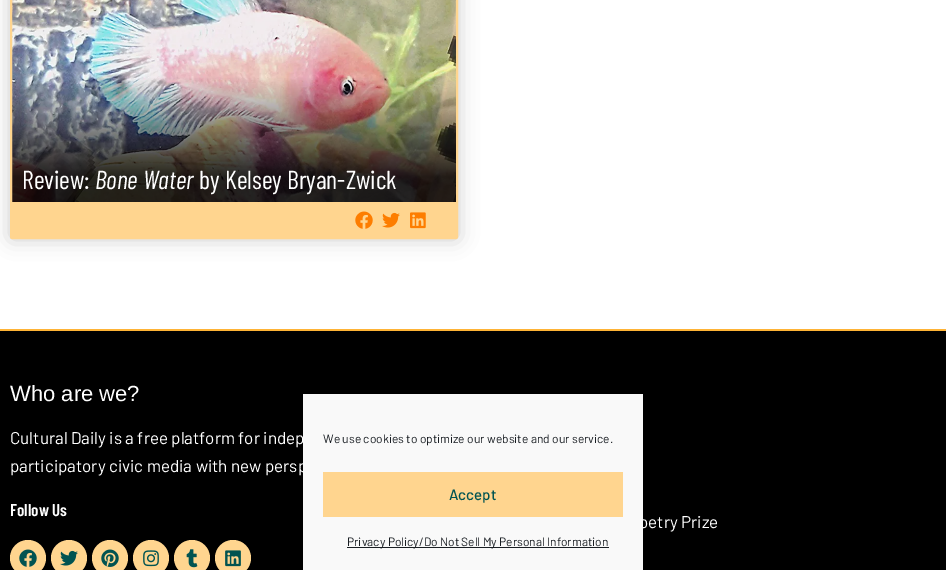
%!PS
<< /PageSize [946 570] /PageUsesTransparency true >> setpagedevice
/fl/fill load def
/st/stroke load def
/lw/setlinewidth load def
/co { dup -16 bitshift 255 div exch dup -8 bitshift 255 and 255 div exch 255 and 255 div setrgbcolor } def
/fn { [ exch dup neg 0 0 3 -1 roll 0 0 ] selectfont } def
/tx { co fn moveto show } def
/bx { co rectfill } def
/al { dup .setfillconstantalpha .setstrokeconstantalpha } def
/ci { newpath 0 360 arc closepath } def
/rr { 5 dict begin { /r /h /w /y /x } { exch def } forall
  x r add y moveto x w add y 2 copy h add r arct x w add y h add x 1 index r arct
  x y h add x y r arct x y 2 copy exch w add exch r arct closepath end } def
/sh { 12 dict begin { /a /b /q /h /w /y /x } { exch def } forall gsave /was 0 def
  9 -2 -9 { dup b mul 4 div /e exch def 1 sub .425 mul 2.718 exch exp 1 add a .99 .min exch div /now exch def
    1 1 now sub 1 was sub div sub al /was now def
    w h .min e 2 mul add 0 gt { x e sub y e sub w e 2 mul add h e 2 mul add
      q e add b .6 mul add w h .min 2 div e add .min 0 .max rr fill } if } for grestore end } def
/im { 5 dict begin { /h /w /y /x /name } { exch def } forall
  gsave x y translate w h scale
  w h 8 [w 0 0 h 0 0] name (r) file false 3 colorimage grestore end } def
0 .pushpdf14devicefilter
0 570 translate 1 -1 scale
4 setmiterlimit
0 0 946 570 16#FFFFFF bx
16#000000 co
10 -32 448 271 2 10 .2 sh
(media/1.raw) 12 0 444 202 im
16#FFD58F co
2 lw
11 -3 446 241 1 rr st
12 202 444 35 16#FFD58F bx
(media/2.raw) 355 211 18 18 im
(media/3.raw) 382 212 18 16 im
(media/4.raw) 410 212 16 17 im
0 331 946 239 16#000000 bx
0 329 946 2 16#FEB336 bx
16#FFD58F co
28 558 18 ci fl
(media/5.raw) 19 549 18 18 im
69 558 18 ci fl
(media/6.raw) 60 550 18 16 im
110 558 18 ci fl
(media/7.raw) 101 549 18 18 im
151 558 18 ci fl
(media/8.raw) 143 550 16 17 im
192 558 18 ci fl
(media/9.raw) 186 549 12 19 im
233 558 18 ci fl
(media/10.raw) 225 550 16 17 im
16#000000 co
303 400 340 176 0 3 .23 sh
303 404 340 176 0 10 .19 sh
(Review:) 22 189 /BarlowCondensed-Regular 26 16#FFFFFF tx
(Bone Water) 95 189 /BarlowCondensed-Italic 26 16#FFFFFF tx
(by Kelsey Bryan-Zwick) 199 189 /BarlowCondensed-Regular 26 16#FFFFFF tx
(Who are we?) 10 401 /LiberationSans-Regular 22 16#FFFFFF tx
(Cultural Daily is a free platform for indep) 10 444 /Barlow-Regular 17 16#FFFFFF tx
(participatory civic media with new persp) 10 472 /Barlow-Regular 17 16#FFFFFF tx
(Follow Us) 10 516 /BarlowCondensed-SemiBold 17 16#FFFFFF tx
(oetry Prize) 639 528 /Barlow-Regular 17 16#FFFFFF tx
303 394 340 176 16#F9F9F9 bx
(We use cookies to optimize our website and our service.) 323 443 /Barlow-Regular 12 16#191E23 tx
323 472 300 45 16#FFD58F bx
(Accept) 449 500 /Barlow-Medium 15 16#015351 tx
347 547 262 1 16#191E23 bx
(Privacy Policy/Do Not Sell My Personal Information) 347 546 /Barlow-Regular 12 16#191E23 tx
.poppdf14devicefilter showpage
